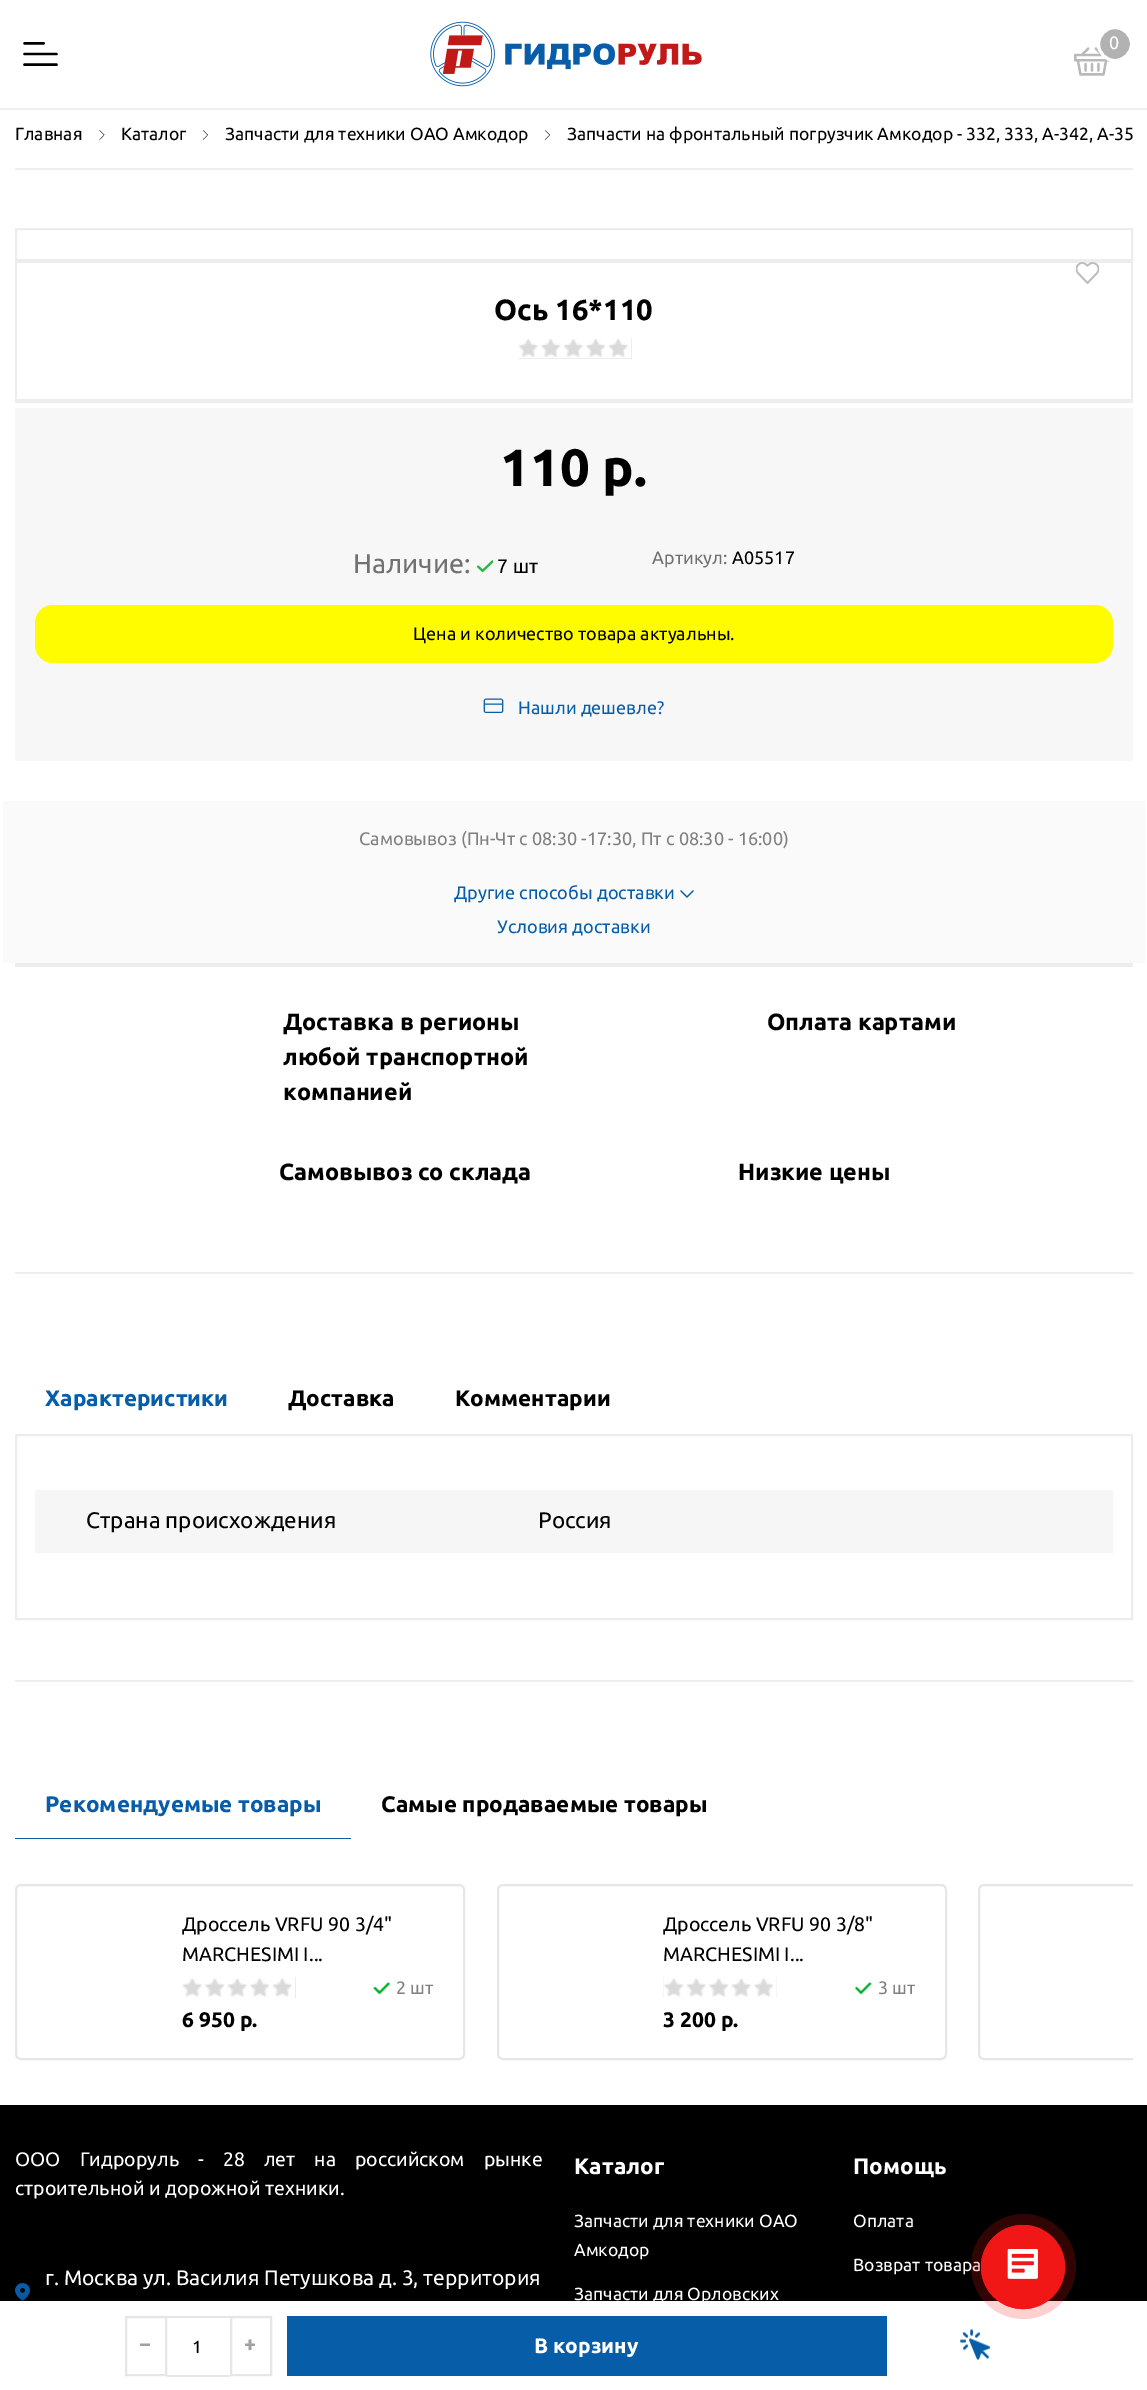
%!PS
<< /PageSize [1147 2390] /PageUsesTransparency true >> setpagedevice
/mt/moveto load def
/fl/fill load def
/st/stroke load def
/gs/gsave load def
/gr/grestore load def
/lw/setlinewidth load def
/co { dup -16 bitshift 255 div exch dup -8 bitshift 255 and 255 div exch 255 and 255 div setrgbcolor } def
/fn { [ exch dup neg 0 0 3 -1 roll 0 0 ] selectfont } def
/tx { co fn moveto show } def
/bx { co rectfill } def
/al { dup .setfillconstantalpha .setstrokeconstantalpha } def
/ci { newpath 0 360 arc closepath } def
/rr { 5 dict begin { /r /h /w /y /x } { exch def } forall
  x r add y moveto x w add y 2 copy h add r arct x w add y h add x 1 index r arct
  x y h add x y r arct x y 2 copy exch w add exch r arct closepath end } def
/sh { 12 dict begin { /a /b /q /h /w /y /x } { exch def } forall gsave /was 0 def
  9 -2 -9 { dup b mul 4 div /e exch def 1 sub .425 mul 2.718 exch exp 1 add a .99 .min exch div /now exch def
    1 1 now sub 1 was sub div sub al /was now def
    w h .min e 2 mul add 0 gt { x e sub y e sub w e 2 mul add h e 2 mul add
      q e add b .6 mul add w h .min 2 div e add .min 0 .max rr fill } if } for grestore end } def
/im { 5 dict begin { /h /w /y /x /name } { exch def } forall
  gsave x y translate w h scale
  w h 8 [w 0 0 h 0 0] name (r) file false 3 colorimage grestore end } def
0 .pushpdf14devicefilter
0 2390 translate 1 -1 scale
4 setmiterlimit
0 0 1147 2390 16#FFFFFF bx
0 108 1147 2 16#EEEEEE bx
(media/1.raw) 23 42 35 24 im
(media/2.raw) 430 21 272 66 im
(media/3.raw) 1074 47 36 29 im
16#B2B2B2 co
1115 44 16.5 ci gs fl gr
16#FFFFFF co
3 lw
st
15 168 1118 2 16#EEEEEE bx
(media/4.raw) 99 130 6 11 im
(media/5.raw) 202 130 6 10 im
(media/5.raw) 544 130 6 10 im
15 261 1118 2 16#EDEDED bx
2 lw
16 229 1116 31 rectstroke
(media/6.raw) 1075 262 25 22 im
15 963 1118 4 16#EDEDED bx
1131 263 2 139 16#EDEDED bx
15 401 1118 2 16#EDEDED bx
15 263 2 139 16#EDEDED bx
17 399 1114 2 16#EDEDED bx
518 338 114 21 16#DADADA bx
(media/7.raw) 518 338 114 21 im
15 408 1118 353 16#F7F7F7 bx
(media/8.raw) 477 560 17 13 im
16#FFFC00 co
35 605 1078 58 18 rr fl
(media/9.raw) 483 698 21 15 im
3 801 1142 162 16#FAFAFA bx
(media/10.raw) 680 890 14 8 im
0 2105 1147 196 16#000000 bx
(media/16.raw) 15 2283 15 18 im
0 2298 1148 90 0 4.5 .15 sh
0 2301 1147 89 16#FFFFFF bx
16#E6E6E6 co
126 2317 40 58 rectstroke
167 2316 63 2 16#E6E6E6 bx
167 2375 63 2 16#E6E6E6 bx
231 2317 40 58 rectstroke
287 2316 600 60 16#085DA9 bx
(media/11.raw) 960 2329 30 31 im
15 1272 1118 2 16#EBEDEE bx
15 1680 1118 2 16#EBEDEE bx
16#EDEDED co
16 1435 1116 184 rectstroke
16#F6F6F6 co
36 1491 1076 61 rectstroke
37 1492 1074 59 16#F6F6F6 bx
15 1838 336 1 16#085DA9 bx
16#E6E6E6 co
16 1885 448 174 5 rr st
182 1977 114 21 16#DADADA bx
(media/12.raw) 182 1977 114 21 im
(media/13.raw) 373 1982 18 13 im
16#E6E6E6 co
498 1885 448 174 5 rr st
663 1977 114 21 16#DADADA bx
(media/14.raw) 663 1977 114 21 im
(media/15.raw) 855 1982 17 13 im
gs
8 1877 1125 190 rectclip
16#E6E6E6 co
979 1885 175 174 5 rr st
gr
(0) 1109 49 /Ubuntu-Regular 18 16#FFFFFF tx
(Главная) 15 140 /Ubuntu-Regular 17.55 16#000000 tx
(Каталог) 121 140 /Ubuntu-Regular 17.55 16#000000 tx
(Запчасти для техники ОАО Амкодор) 225 140 /Ubuntu-Regular 17.55 16#000000 tx
(Запчасти на фронтальный погрузчик Амкодор - 332, 333, А-342, А-35) 567 140 /Ubuntu-Regular 17.55 16#000000 tx
(Ось 16*110) 494 320 /Ubuntu-Bold 29.25 16#000000 tx
(110 р.) 500 486 /Ubuntu-Bold 52.5 16#000000 tx
(Наличие:) 353 573 /Ubuntu-Regular 27 16#717171 tx
(7 шт) 497 573 /Ubuntu-Regular 19.5 16#000000 tx
(Артикул:) 652 564 /Ubuntu-Regular 18 16#717171 tx
(А05517) 732 564 /Ubuntu-Regular 18 16#000000 tx
(Цена и количество товара актуальны.) 413 640 /Ubuntu-Regular 18 16#000000 tx
(Нашли дешевле?) 518 714 /Ubuntu-Regular 18 16#085DA9 tx
(Самовывоз \(Пн-Чт с 08:30 -17:30, Пт с 08:30 - 16:00\)) 359 845 /Ubuntu-Regular 18.1 16#808080 tx
(Другие способы доставки) 454 899 /Ubuntu-Regular 18.1 16#085DA9 tx
(Условия доставки) 497 933 /Ubuntu-Regular 18.1 16#085DA9 tx
(−) 139 2351 /Ubuntu-Bold 21 16#A1A1A1 tx
(1) 192 2353 /Ubuntu-Regular 17.55 16#000000 tx
(+) 244 2351 /Ubuntu-Bold 21 16#A1A1A1 tx
(В корзину) 534 2353 /Ubuntu-Bold 21 16#FFFFFF tx
(Доставка в регионы) 283 1030 /Ubuntu-Bold 23.4 16#000000 tx
(любой транспортной) 283 1065 /Ubuntu-Bold 23.4 16#000000 tx
(компанией) 283 1100 /Ubuntu-Bold 23.4 16#000000 tx
(Оплата картами) 767 1030 /Ubuntu-Bold 23.4 16#000000 tx
(Самовывоз со склада) 279 1180 /Ubuntu-Bold 23.4 16#000000 tx
(Низкие цены) 738 1180 /Ubuntu-Bold 23.4 16#000000 tx
(Характеристики) 45 1406 /Ubuntu-Bold 22.5 16#085DA9 tx
(Доставка) 288 1406 /Ubuntu-Bold 22.5 16#000000 tx
(Комментарии) 455 1406 /Ubuntu-Bold 22.5 16#000000 tx
(Страна происхождения) 86 1528 /Ubuntu-Regular 22.5 16#000000 tx
(Россия) 538 1528 /Ubuntu-Regular 22.5 16#000000 tx
(Рекомендуемые товары) 45 1812 /Ubuntu-Bold 22.5 16#085DA9 tx
(Самые продаваемые товары) 381 1812 /Ubuntu-Bold 22.5 16#000000 tx
(Дроссель VRFU 90 3/4") 182 1931 /Ubuntu-Regular 19.5 16#000000 tx
(MARCHESIMI I...) 182 1961 /Ubuntu-Regular 19.5 16#000000 tx
(2 шт) 396 1994 /Ubuntu-Regular 18 16#808080 tx
(6 950 р.) 182 2027 /Ubuntu-Bold 21 16#000000 tx
(Дроссель VRFU 90 3/8") 663 1931 /Ubuntu-Regular 19.5 16#000000 tx
(MARCHESIMI I...) 663 1961 /Ubuntu-Regular 19.5 16#000000 tx
(3 шт) 878 1994 /Ubuntu-Regular 18 16#808080 tx
(3 200 р.) 663 2027 /Ubuntu-Bold 21 16#000000 tx
/Ubuntu-Regular 19.5 fn
16#FFFFFF co
15 2166 mt 14.5 0 32 (ООО Гидроруль - 28 лет на российском рынке) widthshow
(строительной и дорожной техники.) 15 2195 /Ubuntu-Regular 19.5 16#FFFFFF tx
(г. Москва ул. Василия Петушкова д. 3, территория) 45 2285 /Ubuntu-Regular 21 16#FFFFFF tx
(Каталог) 574 2174 /Ubuntu-Bold 22.5 16#FFFFFF tx
(Запчасти для техники ОАО) 574 2227 /Ubuntu-Regular 17.55 16#FFFFFF tx
(Амкодор) 574 2256 /Ubuntu-Regular 17.55 16#FFFFFF tx
(Запчасти для Орловских) 574 2300 /Ubuntu-Regular 17.55 16#FFFFFF tx
(Помощь) 853 2174 /Ubuntu-Bold 22.5 16#FFFFFF tx
(Оплата) 853 2227 /Ubuntu-Regular 17.55 16#FFFFFF tx
(Возврат товара) 853 2271 /Ubuntu-Regular 17.55 16#FFFFFF tx
0.2 al
16#F11716 co
1023.5 2266.5 52.5 ci fl
1 al
1 lw
1023 2267 41.5 ci st
1023 2267 42 ci fl
(media/17.raw) 1007 2249 31 30 im
.poppdf14devicefilter showpage
